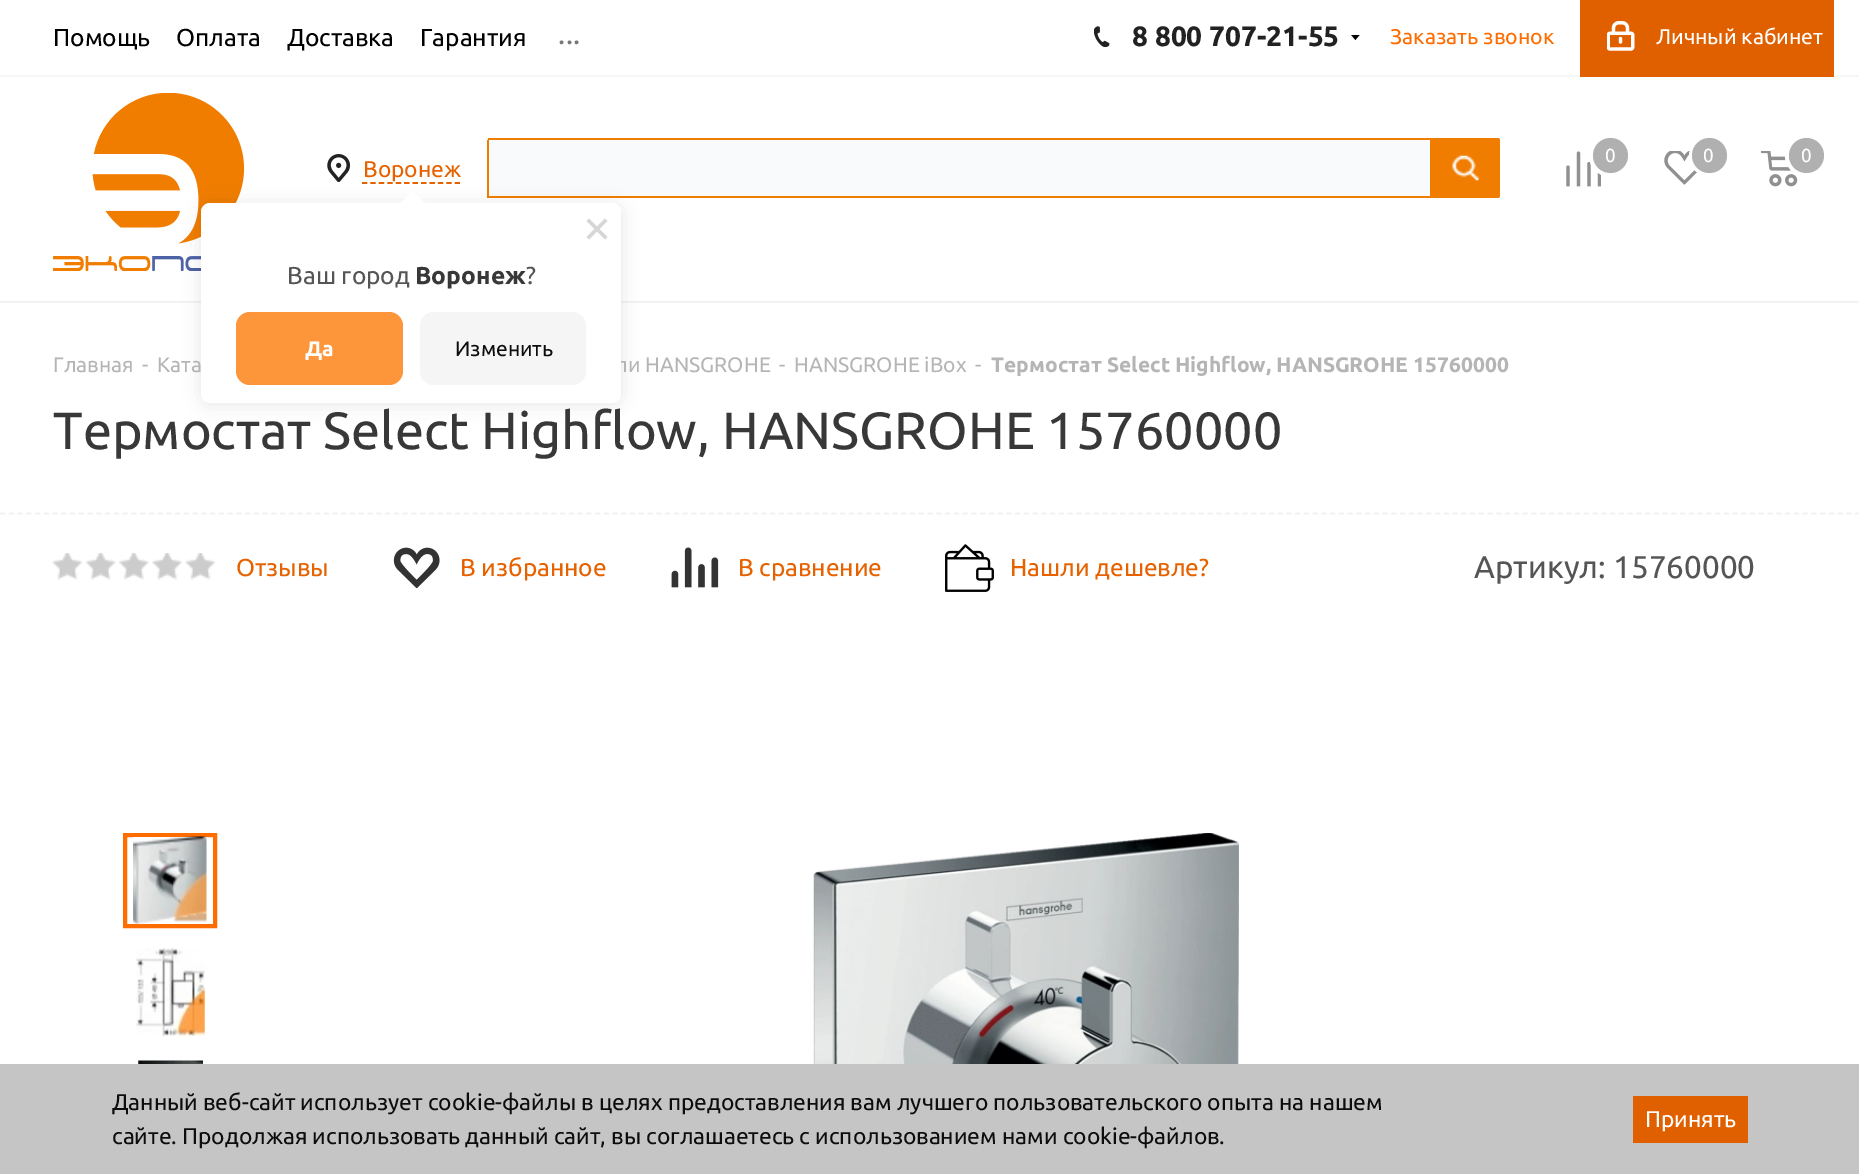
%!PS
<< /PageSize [1859 1174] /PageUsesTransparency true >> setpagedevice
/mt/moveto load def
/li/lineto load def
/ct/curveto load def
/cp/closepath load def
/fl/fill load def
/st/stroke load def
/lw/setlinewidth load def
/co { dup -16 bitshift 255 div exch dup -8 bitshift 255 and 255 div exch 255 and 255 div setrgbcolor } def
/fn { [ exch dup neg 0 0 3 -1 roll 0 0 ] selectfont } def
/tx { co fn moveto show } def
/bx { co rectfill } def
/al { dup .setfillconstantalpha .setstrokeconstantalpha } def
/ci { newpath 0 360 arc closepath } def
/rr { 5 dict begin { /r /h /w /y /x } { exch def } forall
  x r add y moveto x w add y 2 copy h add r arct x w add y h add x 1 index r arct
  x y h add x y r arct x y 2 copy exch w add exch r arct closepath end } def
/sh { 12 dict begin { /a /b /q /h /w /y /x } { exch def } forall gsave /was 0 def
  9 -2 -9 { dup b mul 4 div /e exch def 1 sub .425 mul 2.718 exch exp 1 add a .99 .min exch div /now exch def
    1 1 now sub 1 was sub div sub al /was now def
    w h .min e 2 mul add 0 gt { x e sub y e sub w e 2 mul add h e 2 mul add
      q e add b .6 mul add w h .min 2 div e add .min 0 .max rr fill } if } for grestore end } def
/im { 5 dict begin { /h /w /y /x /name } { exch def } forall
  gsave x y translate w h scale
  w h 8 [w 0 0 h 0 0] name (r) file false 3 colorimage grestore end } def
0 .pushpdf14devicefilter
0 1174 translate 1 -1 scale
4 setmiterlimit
0 0 1859 1174 16#FFFFFF bx
0 75 1859 2 16#F6F6F6 bx
(media/1.raw) 1094 26 16 21 im
(media/2.raw) 1351 35 9 5 im
1580 0 254 77 16#E06000 bx
(media/3.raw) 1607 21 28 30 im
(media/4.raw) 53 93 192 178 im
16#F8FAFC co
489 138 mt 1430 138 li 1430 198 li 489 198 li 488 198 487 197 487 196 ct 487 140 li 487 139 488 138 489 138 ct cp fl
488 138 942 2 16#F07C00 bx
488 196 942 2 16#F07C00 bx
487 140 2 58 16#F07C00 bx
1430 138 mt 1498 138 li 1499 138 1500 139 1500 140 ct 1500 196 li 1500 197 1499 198 1498 198 ct 1430 198 li cp fl
(media/5.raw) 1452 155 27 26 im
(media/6.raw) 1566 151 35 36 im
16#FFFFFF co
4 lw
1610 156 19 ci st
16#B0B0B0 co
1610.5 155.5 17.5 ci fl
(media/7.raw) 1664 151 36 34 im
16#FFFFFF co
1710 156 19 ci st
16#B0B0B0 co
1709.5 155.5 17.5 ci fl
(media/8.raw) 1761 151 37 36 im
16#FFFFFF co
1806 156 19 ci st
16#B0B0B0 co
1806.5 155.5 17.5 ci fl
(media/9.raw) 327 154 23 28 im
16#E66200 co
1.8 lw
[5.25 3.19] 0 setdash
362 183 mt 460 183 li st
0 301 1859 2 16#F2F2F2 bx
16#F1F1F1 co
[5.25 3.5] 0 setdash
0 513.5 mt 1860 513.5 li st
(media/10.raw) 52 553 31 27 im
(media/11.raw) 85 553 31 27 im
(media/12.raw) 119 553 30 27 im
(media/13.raw) 152 553 31 27 im
(media/14.raw) 185 553 31 27 im
(media/15.raw) 393 547 47 42 im
(media/16.raw) 671 547 48 41 im
(media/17.raw) 945 544 49 48 im
16#FF6D00 co
4 lw
[] 0 setdash
125 835 90 91 rectstroke
(media/18.raw) 133 836 74 89 im
(media/19.raw) 136 948 69 89 im
(media/20.raw) 138 1060 65 4 im
(media/21.raw) 813 833 426 231 im
16#000000 co
201 205 420 199 9 9 .1 sh
0 1064 1859 110 16#C5C5C5 bx
1633 1096 115 47 16#E06000 bx
(Помощь) 53 46 /Ubuntu-Regular 24.5 16#000000 tx
(Оплата) 176 46 /Ubuntu-Regular 24.5 16#000000 tx
(Доставка) 287 46 /Ubuntu-Regular 24.5 16#000000 tx
(Гарантия) 420 46 /Ubuntu-Regular 24.5 16#000000 tx
/Ubuntu-Bold 21 fn
16#777777 co
559 44 mt 2.5 0 (...) ashow
(8 800 707-21-55) 1132 46 /Ubuntu-Bold 28 16#222222 tx
(Заказать звонок) 1390 44 /Ubuntu-Regular 21.25 16#FF6D00 tx
(Личный кабинет) 1656 44 /Ubuntu-Regular 21.25 16#FFFFFF tx
(0) 1605 162 /Ubuntu-Regular 19 16#FFFFFF tx
(0) 1703 162 /Ubuntu-Regular 19 16#FFFFFF tx
(0) 1801 162 /Ubuntu-Regular 19 16#FFFFFF tx
(Воронеж) 363 177 /Ubuntu-Regular 22.75 16#E66200 tx
(Главная) 53 372 /Ubuntu-Regular 21 16#B6B5B5 tx
(-) 142 372 /Ubuntu-Regular 21 16#B6B5B5 tx
(Ката) 157 372 /Ubuntu-Regular 21 16#B6B5B5 tx
(ли HANSGROHE) 615 372 /Ubuntu-Regular 21 16#B6B5B5 tx
(-) 779 372 /Ubuntu-Regular 21 16#B6B5B5 tx
(HANSGROHE iBox) 794 372 /Ubuntu-Regular 21 16#B6B5B5 tx
(-) 975 372 /Ubuntu-Regular 21 16#B6B5B5 tx
(Термостат Select Highflow, HANSGROHE 15760000) 991 372 /Ubuntu-Bold 21 16#B6B5B5 tx
(Термостат Select Highflow, HANSGROHE 15760000) 53 449 /Ubuntu-Regular 52.25 16#383838 tx
(Отзывы) 236 576 /Ubuntu-Regular 24.5 16#E66200 tx
(В избранное) 460 576 /Ubuntu-Regular 24.5 16#E66200 tx
(В сравнение) 738 576 /Ubuntu-Regular 24.5 16#E66200 tx
(Нашли дешевле?) 1010 576 /Ubuntu-Regular 24.5 16#E66200 tx
(Артикул: 15760000) 1474 578 /Ubuntu-Regular 31.5 16#555555 tx
16#FFFFFF co
201 203 420 200 9 rr fl
412.5 191 mt 426 204.5 li 412.5 218 li 399 204.5 li cp fl
16#D6D6D6 co
605 218.5 mt 607.5 221 li 589 239.5 li 586.5 237 li cp fl
586.5 221 mt 589 218.5 li 607.5 237 li 605 239.5 li cp fl
(Ваш город) 287 284 /Ubuntu-Regular 24.5 16#555555 tx
(Воронеж) 415 284 /Ubuntu-Bold 24.5 16#383838 tx
(?) 526 284 /Ubuntu-Regular 24.5 16#555555 tx
16#FD953B co
236 312 167 73 14 rr fl
(Да) 305 356 /Ubuntu-Bold 21 16#FFFFFF tx
16#F5F5F5 co
420 312 166 73 14 rr fl
(Изменить) 455 356 /Ubuntu-Regular 21 16#0D0D0D tx
(Данный веб-сайт использует cookie-файлы в целях предоставления вам лучшего пользовательского опыта на нашем) 112 1110 /Ubuntu-Regular 22.75 16#0D0D0D tx
(сайте. Продолжая использовать данный сайт, вы соглашаетесь с использованием нами cookie-файлов.) 112 1144 /Ubuntu-Regular 22.75 16#0D0D0D tx
(Принять) 1645 1127 /Ubuntu-Regular 22.75 16#FFFFFF tx
.poppdf14devicefilter showpage
